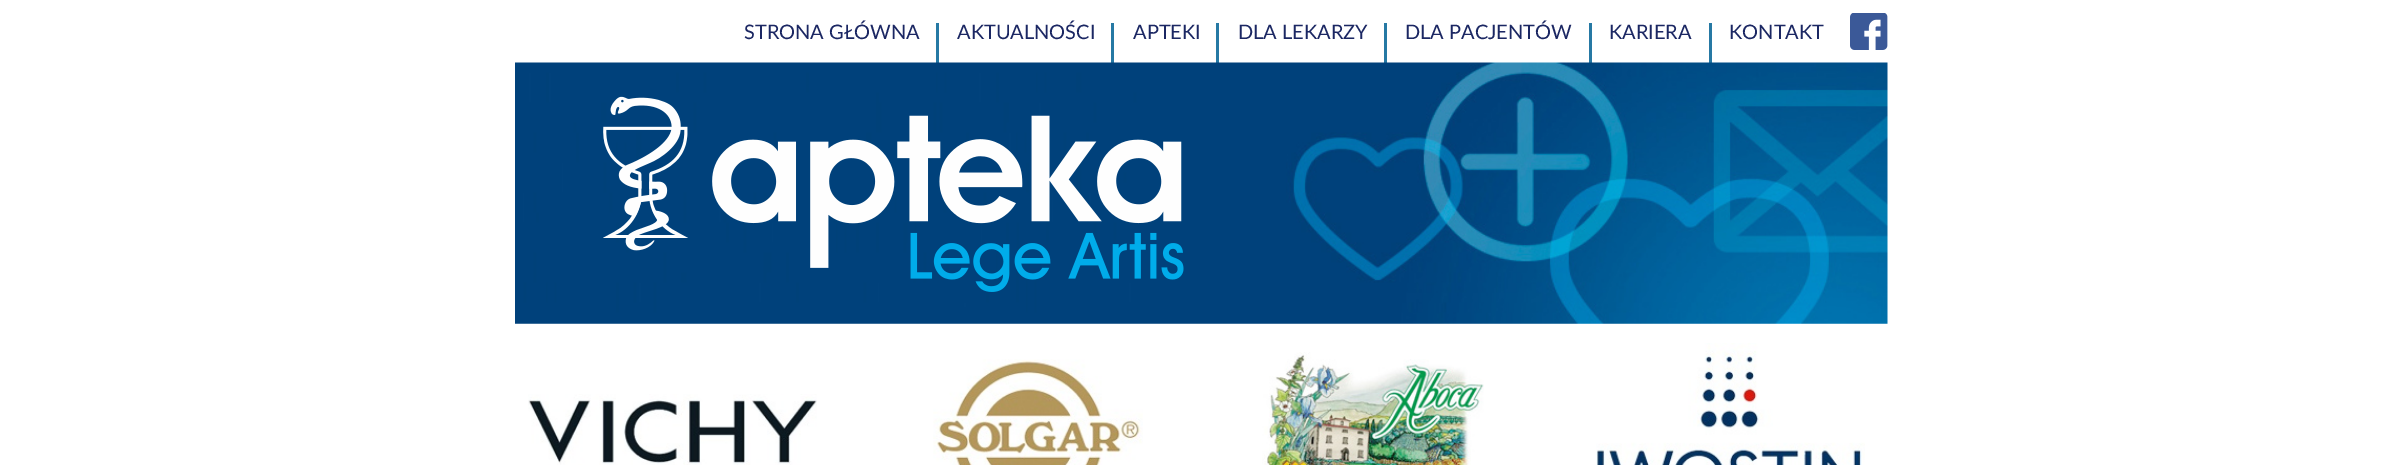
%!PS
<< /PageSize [2401 465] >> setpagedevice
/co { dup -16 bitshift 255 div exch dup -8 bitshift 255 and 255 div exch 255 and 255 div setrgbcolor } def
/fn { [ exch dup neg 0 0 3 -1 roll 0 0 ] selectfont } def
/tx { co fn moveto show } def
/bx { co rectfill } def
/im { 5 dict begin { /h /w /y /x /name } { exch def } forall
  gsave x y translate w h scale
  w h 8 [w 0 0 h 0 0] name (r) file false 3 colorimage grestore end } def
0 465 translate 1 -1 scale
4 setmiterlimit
0 0 2401 465 16#FFFFFF bx
936 23 3 40 16#2679A4 bx
1111 23 3 40 16#2679A4 bx
1216 23 3 40 16#2679A4 bx
1384 23 3 40 16#2679A4 bx
1589 23 3 40 16#2679A4 bx
1709 23 3 40 16#2679A4 bx
(media/1.raw) 1850 13 38 37 im
(media/2.raw) 515 62 1373 262 im
(media/3.raw) 603 96 581 196 im
(media/4.raw) 528 394 289 71 im
(media/5.raw) 933 359 210 106 im
(media/6.raw) 1262 352 222 113 im
(media/7.raw) 1596 343 269 122 im
(STRONA GŁÓWNA) 744 39 /Lato-Regular 20 16#1B2763 tx
(AKTUALNOŚCI) 957 39 /Lato-Regular 20 16#1B2763 tx
(APTEKI) 1133 39 /Lato-Regular 20 16#1B2763 tx
(DLA LEKARZY) 1238 39 /Lato-Regular 20 16#1B2763 tx
(DLA PACJENTÓW) 1405 39 /Lato-Regular 20 16#1B2763 tx
(KARIERA) 1609 39 /Lato-Regular 20 16#1B2763 tx
(KONTAKT) 1729 39 /Lato-Regular 20 16#1B2763 tx
showpage
